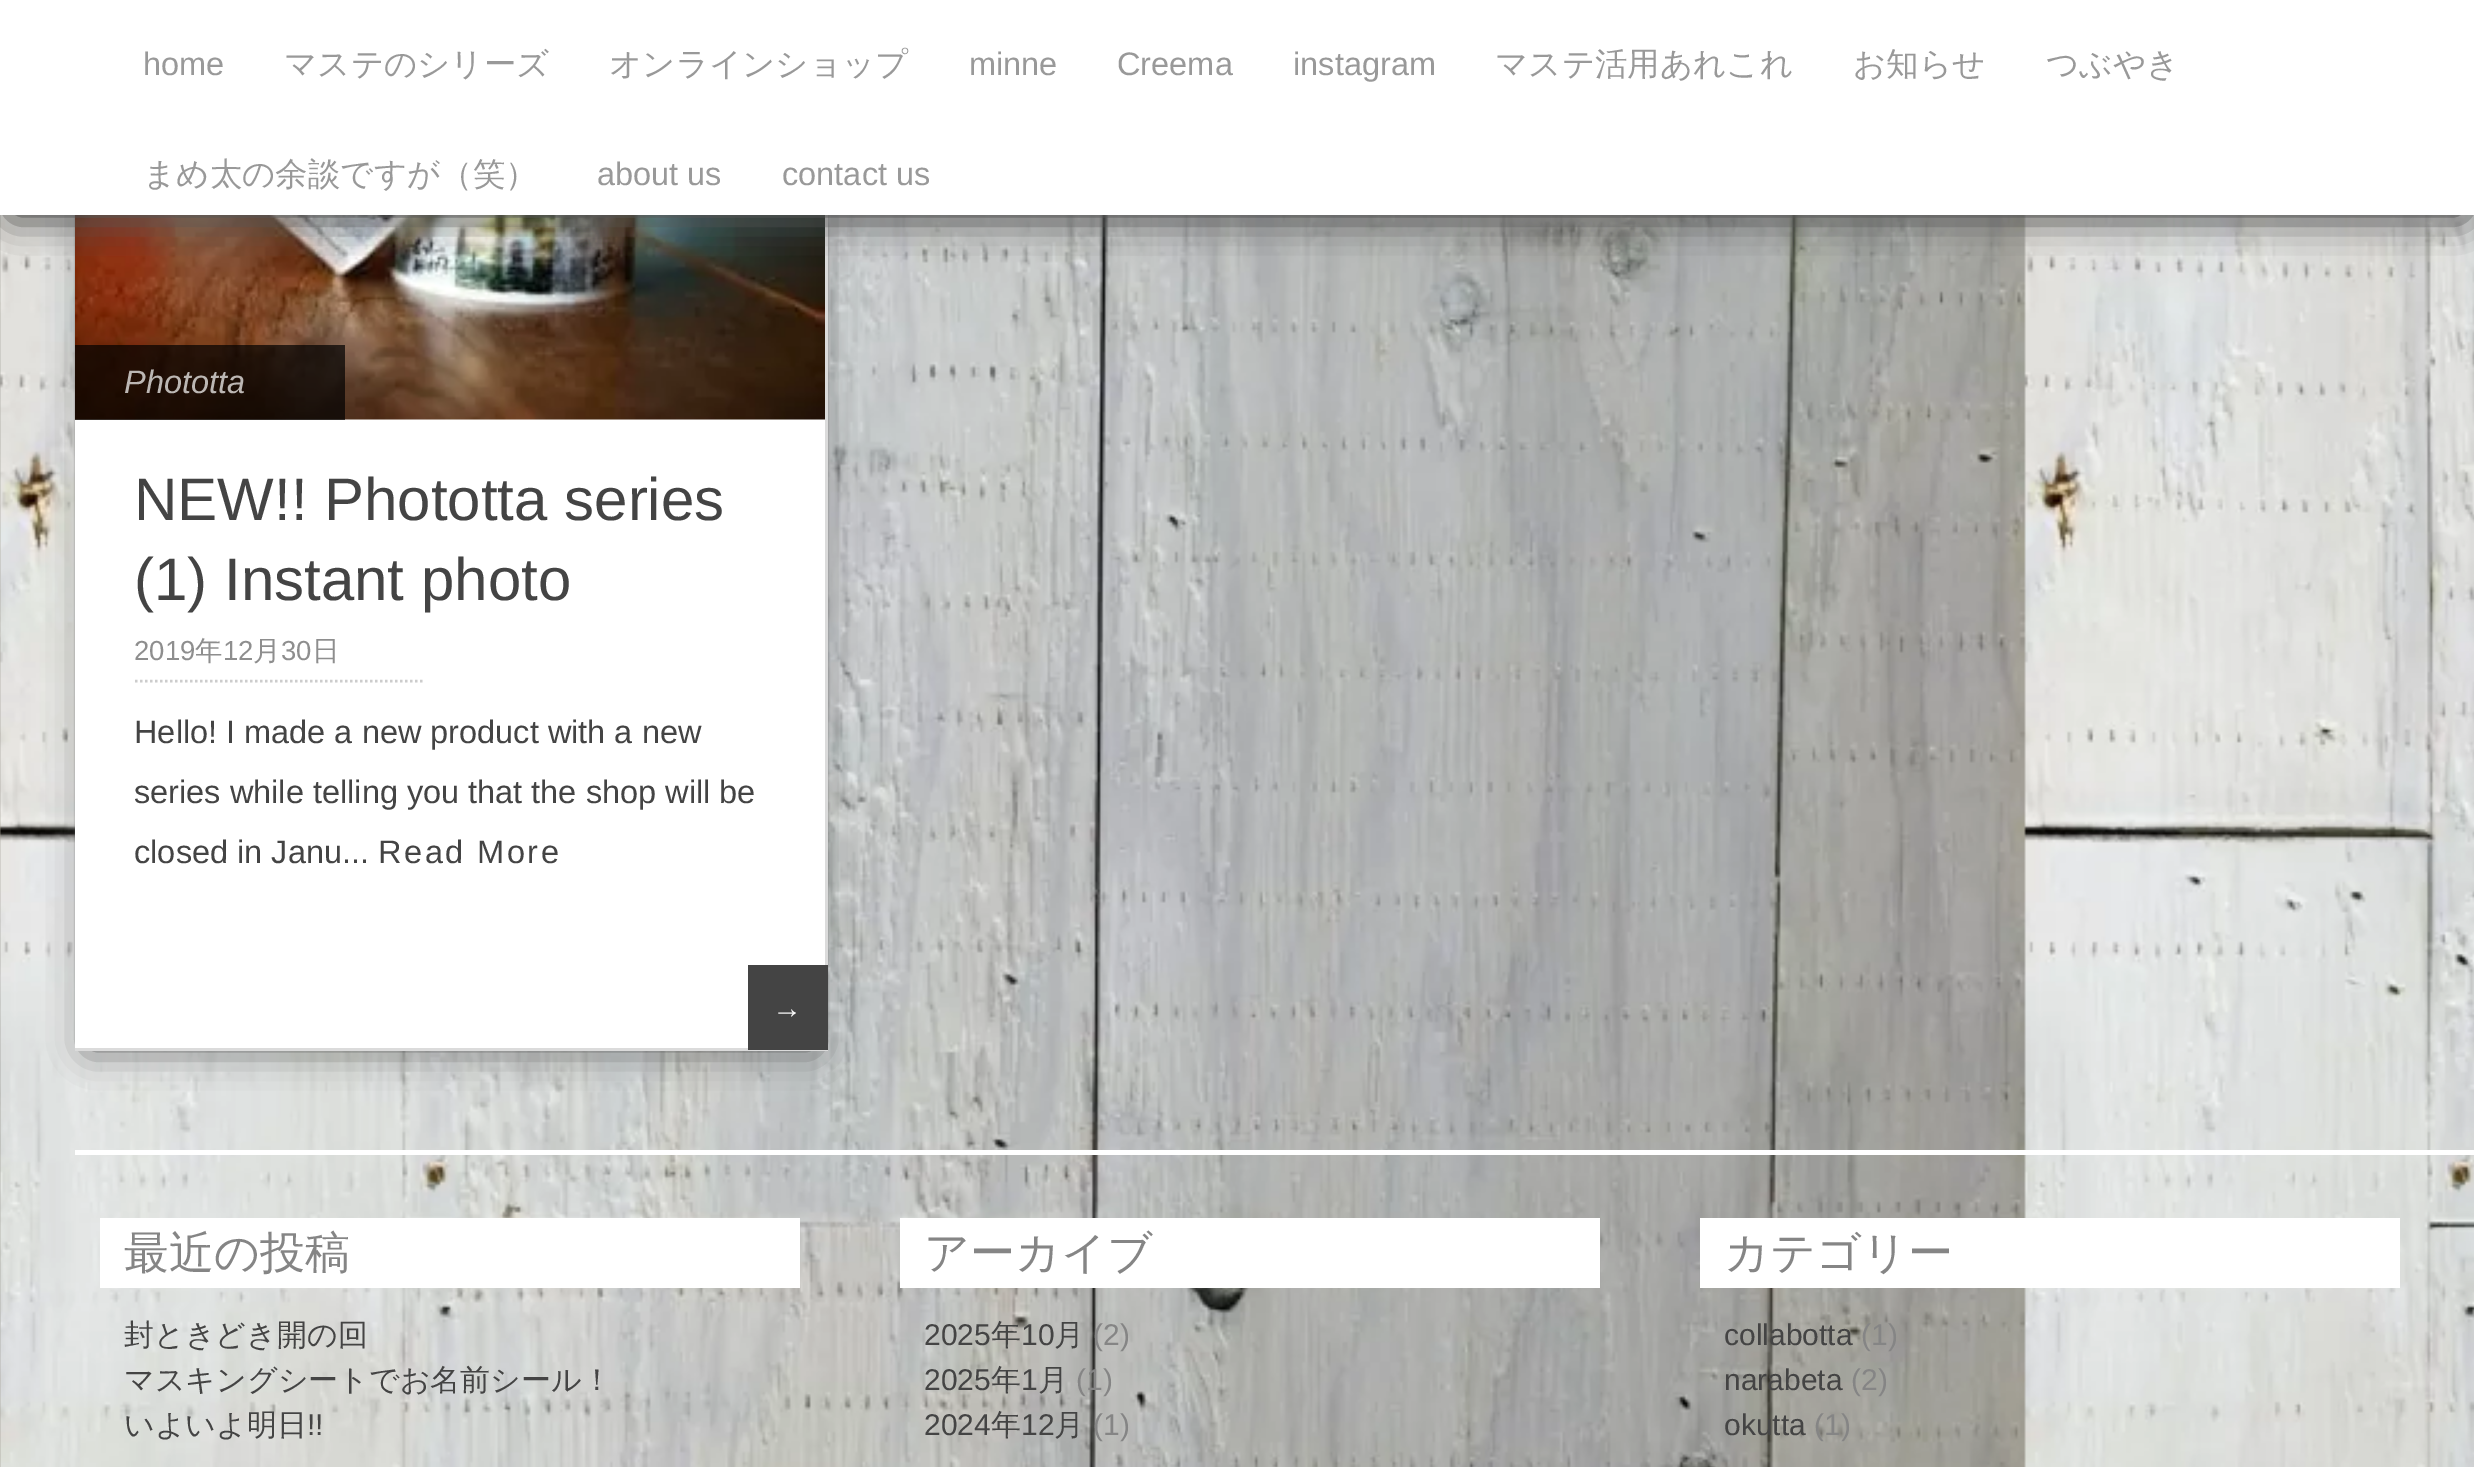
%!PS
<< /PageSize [2474 1467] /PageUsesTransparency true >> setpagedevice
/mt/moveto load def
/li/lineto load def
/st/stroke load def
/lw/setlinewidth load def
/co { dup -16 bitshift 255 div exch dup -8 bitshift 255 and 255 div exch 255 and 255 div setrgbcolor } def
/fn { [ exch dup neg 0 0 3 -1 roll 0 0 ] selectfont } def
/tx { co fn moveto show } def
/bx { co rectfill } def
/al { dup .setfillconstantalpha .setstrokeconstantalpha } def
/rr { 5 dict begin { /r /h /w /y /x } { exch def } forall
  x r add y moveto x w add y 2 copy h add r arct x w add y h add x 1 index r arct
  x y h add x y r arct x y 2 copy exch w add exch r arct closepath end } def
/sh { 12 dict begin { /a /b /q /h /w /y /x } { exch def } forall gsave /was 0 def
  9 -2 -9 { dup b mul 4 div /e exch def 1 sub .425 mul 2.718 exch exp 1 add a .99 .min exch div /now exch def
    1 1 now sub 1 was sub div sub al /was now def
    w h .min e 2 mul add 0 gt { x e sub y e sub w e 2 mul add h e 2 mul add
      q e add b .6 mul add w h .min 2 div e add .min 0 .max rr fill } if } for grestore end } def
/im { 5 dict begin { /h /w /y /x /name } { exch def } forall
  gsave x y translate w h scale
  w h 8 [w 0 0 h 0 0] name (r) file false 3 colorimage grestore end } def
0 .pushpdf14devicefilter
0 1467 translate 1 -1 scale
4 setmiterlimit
0 0 2474 1467 16#FFFFFF bx
(media/1.raw) 0 215 2474 1252 im
16#555555 co
88 -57 727 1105 0 19 1 sh
825 215 3 750 16#DBDBDB bx
75 419 750 629 16#FFFFFF bx
(media/2.raw) 75 215 750 205 im
16#555555 co
13 23 2450 190 0 19 1 sh
13 23 2450 190 0 19 1 sh
0 0 2474 215 16#FFFFFF bx
75 1048 753 3 16#DBDBDB bx
0.7 al
75 345 270 75 16#000000 bx
1 al
16#CCCCCC co
2.5 lw
[2.5 2.5] 0 setdash
135 681 mt 422.5 681 li st
748 965 80 85 16#444444 bx
75 1150 2399 5 16#FFFFFF bx
100 1218 700 70 16#FFFFFF bx
900 1218 700 70 16#FFFFFF bx
1700 1218 700 70 16#FFFFFF bx
(home) 143 75 /LiberationSans-Regular 32.5 16#999999 tx
(マステのシリーズ) 284 75 /WenQuanYiZenHei-Medium 32.5 16#999999 tx
(オンラインショップ) 609 75 /WenQuanYiZenHei-Medium 32.5 16#999999 tx
(minne) 969 75 /LiberationSans-Regular 32.5 16#999999 tx
(Creema) 1117 75 /LiberationSans-Regular 32.5 16#999999 tx
(instagram) 1293 75 /LiberationSans-Regular 32.5 16#999999 tx
(マステ活用あれこれ) 1495 75 /WenQuanYiZenHei-Medium 32.5 16#999999 tx
(お知らせ) 1853 75 /WenQuanYiZenHei-Medium 32.5 16#999999 tx
(つぶやき) 2046 75 /WenQuanYiZenHei-Medium 32.5 16#999999 tx
(まめ太の余談ですが（笑）) 143 185 /WenQuanYiZenHei-Medium 32.5 16#999999 tx
(about us) 597 185 /LiberationSans-Regular 32.5 16#999999 tx
(contact us) 782 185 /LiberationSans-Regular 32.5 16#999999 tx
(Phototta) 124 393 /LiberationSans-Italic 32.5 16#BCB7B4 tx
(NEW!! Phototta series) 134 520 /LiberationSans-Regular 60 16#444444 tx
(\(1\) Instant photo) 134 600 /LiberationSans-Regular 60 16#444444 tx
(2019) 134 660 /LiberationSans-Regular 27.5 16#8E8E8E tx
(年) 195 660 /WenQuanYiZenHei-Medium 27.5 16#8E8E8E tx
(12) 223 660 /LiberationSans-Regular 27.5 16#8E8E8E tx
(月) 253 660 /WenQuanYiZenHei-Medium 27.5 16#8E8E8E tx
(30) 281 660 /LiberationSans-Regular 27.5 16#8E8E8E tx
(日) 312 660 /WenQuanYiZenHei-Medium 27.5 16#8E8E8E tx
(Hello! I made a new product with a new) 134 743 /LiberationSans-Regular 32.5 16#444444 tx
(series while telling you that the shop will be) 134 803 /LiberationSans-Regular 32.5 16#444444 tx
(closed in Janu...) 134 863 /LiberationSans-Regular 32.5 16#444444 tx
378 863 mt 2.5 0 (Read More) ashow
(→) 772 1018 /LiberationSans-Regular 30 16#FAFAFA tx
(最近の投稿) 124 1268 /WenQuanYiZenHei-Medium 45 16#858585 tx
(封ときどき開の回) 124 1345 /WenQuanYiZenHei-Medium 30 16#444444 tx
(マスキングシートでお名前シール！) 124 1390 /WenQuanYiZenHei-Medium 30 16#444444 tx
(いよいよ明日) 124 1435 /WenQuanYiZenHei-Medium 30 16#444444 tx
(!!) 307 1435 /LiberationSans-Regular 30 16#444444 tx
(アーカイブ) 924 1268 /WenQuanYiZenHei-Medium 45 16#858585 tx
(2025) 924 1345 /LiberationSans-Regular 30 16#444444 tx
(年) 991 1345 /WenQuanYiZenHei-Medium 30 16#444444 tx
(10) 1021 1345 /LiberationSans-Regular 30 16#444444 tx
(月) 1054 1345 /WenQuanYiZenHei-Medium 30 16#444444 tx
(\(2\)) 1093 1345 /LiberationSans-Regular 30 16#858585 tx
(2025) 924 1390 /LiberationSans-Regular 30 16#444444 tx
(年) 991 1390 /WenQuanYiZenHei-Medium 30 16#444444 tx
(1) 1021 1390 /LiberationSans-Regular 30 16#444444 tx
(月) 1038 1390 /WenQuanYiZenHei-Medium 30 16#444444 tx
(\(1\)) 1076 1390 /LiberationSans-Regular 30 16#858585 tx
(2024) 924 1435 /LiberationSans-Regular 30 16#444444 tx
(年) 991 1435 /WenQuanYiZenHei-Medium 30 16#444444 tx
(12) 1021 1435 /LiberationSans-Regular 30 16#444444 tx
(月) 1054 1435 /WenQuanYiZenHei-Medium 30 16#444444 tx
(\(1\)) 1093 1435 /LiberationSans-Regular 30 16#858585 tx
(カテゴリー) 1724 1268 /WenQuanYiZenHei-Medium 45 16#858585 tx
(collabotta) 1724 1345 /LiberationSans-Regular 30 16#444444 tx
(\(1\)) 1861 1345 /LiberationSans-Regular 30 16#858585 tx
(narabeta) 1724 1390 /LiberationSans-Regular 30 16#444444 tx
(\(2\)) 1851 1390 /LiberationSans-Regular 30 16#858585 tx
(okutta) 1724 1435 /LiberationSans-Regular 30 16#444444 tx
(\(1\)) 1814 1435 /LiberationSans-Regular 30 16#858585 tx
.poppdf14devicefilter showpage
